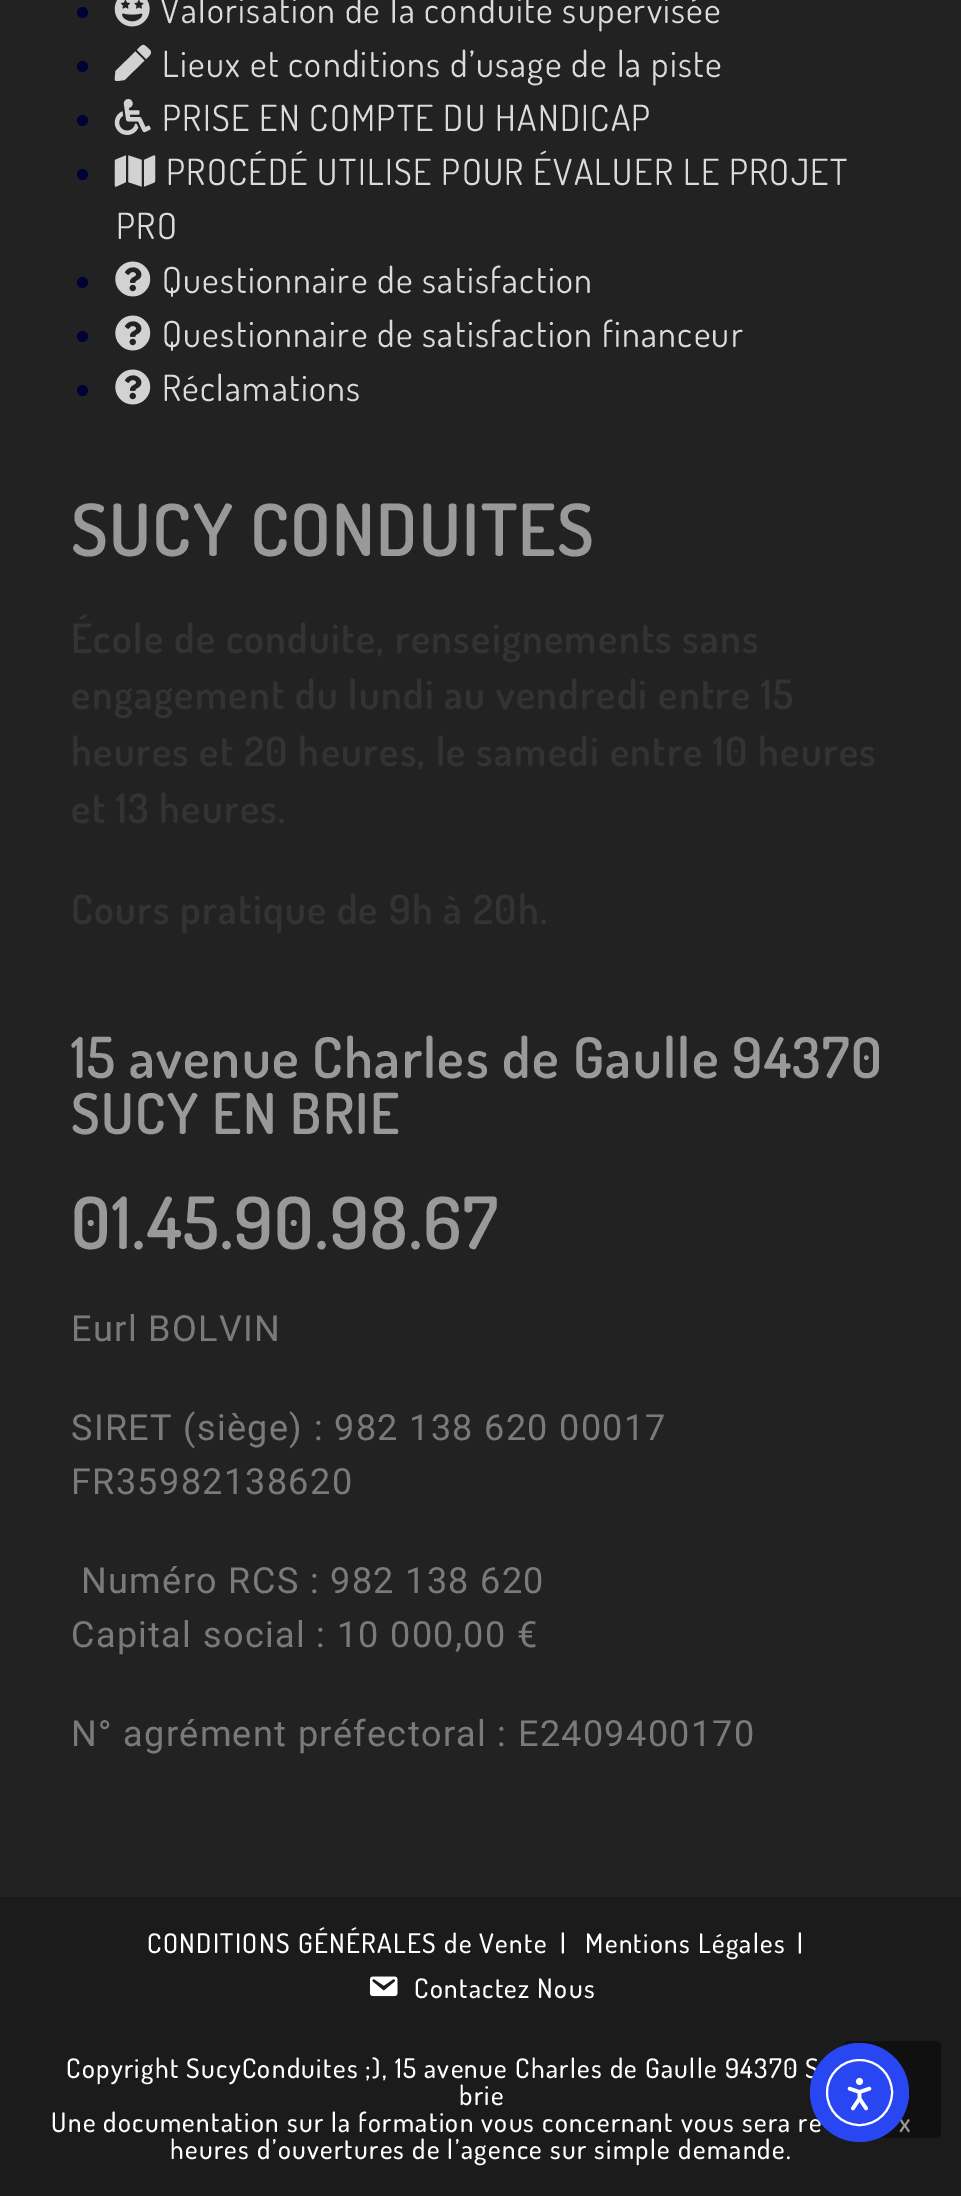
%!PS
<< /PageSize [961 2196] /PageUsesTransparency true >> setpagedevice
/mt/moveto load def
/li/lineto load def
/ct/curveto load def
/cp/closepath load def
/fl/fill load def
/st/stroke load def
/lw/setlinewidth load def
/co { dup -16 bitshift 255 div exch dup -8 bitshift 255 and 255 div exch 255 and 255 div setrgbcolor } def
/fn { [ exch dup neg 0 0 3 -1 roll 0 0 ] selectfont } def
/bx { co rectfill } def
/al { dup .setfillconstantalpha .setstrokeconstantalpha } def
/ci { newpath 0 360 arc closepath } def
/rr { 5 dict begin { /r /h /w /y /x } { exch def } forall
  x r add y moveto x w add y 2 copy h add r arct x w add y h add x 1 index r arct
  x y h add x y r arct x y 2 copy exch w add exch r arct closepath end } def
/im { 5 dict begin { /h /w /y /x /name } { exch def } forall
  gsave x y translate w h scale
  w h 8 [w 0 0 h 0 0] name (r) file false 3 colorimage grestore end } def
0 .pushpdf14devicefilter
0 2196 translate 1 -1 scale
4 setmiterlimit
0 0 961 2196 16#222222 bx
16#000235 co
82.5 12.5 5.5 ci fl
(media/1.raw) 114 0 36 27 im
82.5 66.5 5.5 ci fl
16#D2D2D2 co
135.5 51.5 mt 144.5 60.5 li 124.5 80 li 113 81.5 114.5 83 115.5 71 ct cp 150 50 mt 153 53.5 148 57 146 59 ct 137 50 li 143.5 43 143 43.5 150 50 ct cp fl
16#000235 co
82.5 120.5 5.5 ci fl
(media/2.raw) 114 99 37 36 im
82.5 174.5 5.5 ci fl
(media/3.raw) 114 155 42 32 im
82.5 282.5 5.5 ci fl
(media/4.raw) 115 261 36 36 im
82.5 336.5 5.5 ci fl
(media/4.raw) 115 315 36 36 im
82.5 390.5 5.5 ci fl
(media/4.raw) 115 369 36 36 im
0 1897 961 299 16#1B1B1B bx
(media/5.raw) 369 1976 29 21 im
/Dosis-Regular 36 fn
16#DBDBDB co
160 23 mt 1.35 0 (Valorisation de la conduite supervisée) ashow
162 77 mt 1.35 0 (Lieux et conditions d’usage de la piste) ashow
162 131 mt 1.35 0 (PRISE EN COMPTE DU HANDICAP) ashow
166 185 mt 1.35 0 (PROCÉDÉ UTILISE POUR ÉVALUER LE PROJET) ashow
116 239 mt 1.35 0 (PRO) ashow
162 293 mt 1.35 0 (Questionnaire de satisfaction) ashow
162 347 mt 1.35 0 (Questionnaire de satisfaction financeur) ashow
162 401 mt 1.35 0 (Réclamations) ashow
/Dosis-SemiBold 72 fn
16#999999 co
71 556 mt 1.35 0 (SUCY CONDUITES) ashow
/Dosis-SemiBold 40.5 fn
16#333333 co
71 653 mt 1.35 0 (École de conduite, renseignements sans) ashow
71 709 mt 1.35 0 (engagement du lundi au vendredi entre 15) ashow
71 766 mt 1.35 0 (heures et 20 heures, le samedi entre 10 heures) ashow
71 823 mt 1.35 0 (et 13 heures.) ashow
71 924 mt 1.35 0 (Cours pratique de 9h à 20h.) ashow
/Dosis-SemiBold 56.25 fn
16#999999 co
71 1078 mt 1.35 0 (15 avenue Charles de Gaulle 94370) ashow
71 1134 mt 1.35 0 (SUCY EN BRIE) ashow
/Dosis-SemiBold 72 fn
71 1249 mt 1.35 0 (01.45.90.98.67) ashow
/Roboto-Regular 36 fn
16#7A7A7A co
71 1341 mt 1.35 0 (Eurl BOLVIN) ashow
71 1440 mt 1.35 0 (SIRET \(siège\) : 982 138 620 00017) ashow
71 1494 mt 1.35 0 (FR35982138620) ashow
81 1593 mt 1.35 0 (Numéro RCS : 982 138 620) ashow
71 1647 mt 1.35 0 (Capital social : 10 000,00 €) ashow
71 1746 mt 1.35 0 (N° agrément préfectoral : E2409400170) ashow
/Dosis-Medium 27 fn
16#FFFFFF co
147 1953 mt 1.35 0 (CONDITIONS GÉNÉRALES de Vente) ashow
560 1953 mt 1.35 0 (|) ashow
585 1953 mt 1.35 0 (Mentions Légales) ashow
797 1953 mt 1.35 0 (|) ashow
414 1998 mt 1.35 0 (Contactez Nous) ashow
66 2078 mt 1.35 0 (Copyright SucyConduites ;\), 15 avenue Charles de Gaulle 94370 S) ashow
459 2105 mt 1.35 0 (brie) ashow
51 2132 mt 1.35 0 (Une documentation sur la formation vous concernant vous sera re) ashow
899 2132 mt 1.35 0 (x) ashow
170 2159 mt 1.35 0 (heures d’ouvertures de l’agence sur simple demande.) ashow
0.4 al
16#000000 co
844 2041 97 97 5 rr fl
1 al
(media/6.raw) 908 2094 2 5 im
16#2847F3 co
859.5 2092.5 49.5 ci fl
16#FFFFFF co
2 lw
859.5 2092.5 32.5 ci st
(media/7.raw) 847 2077 25 34 im
.poppdf14devicefilter showpage
